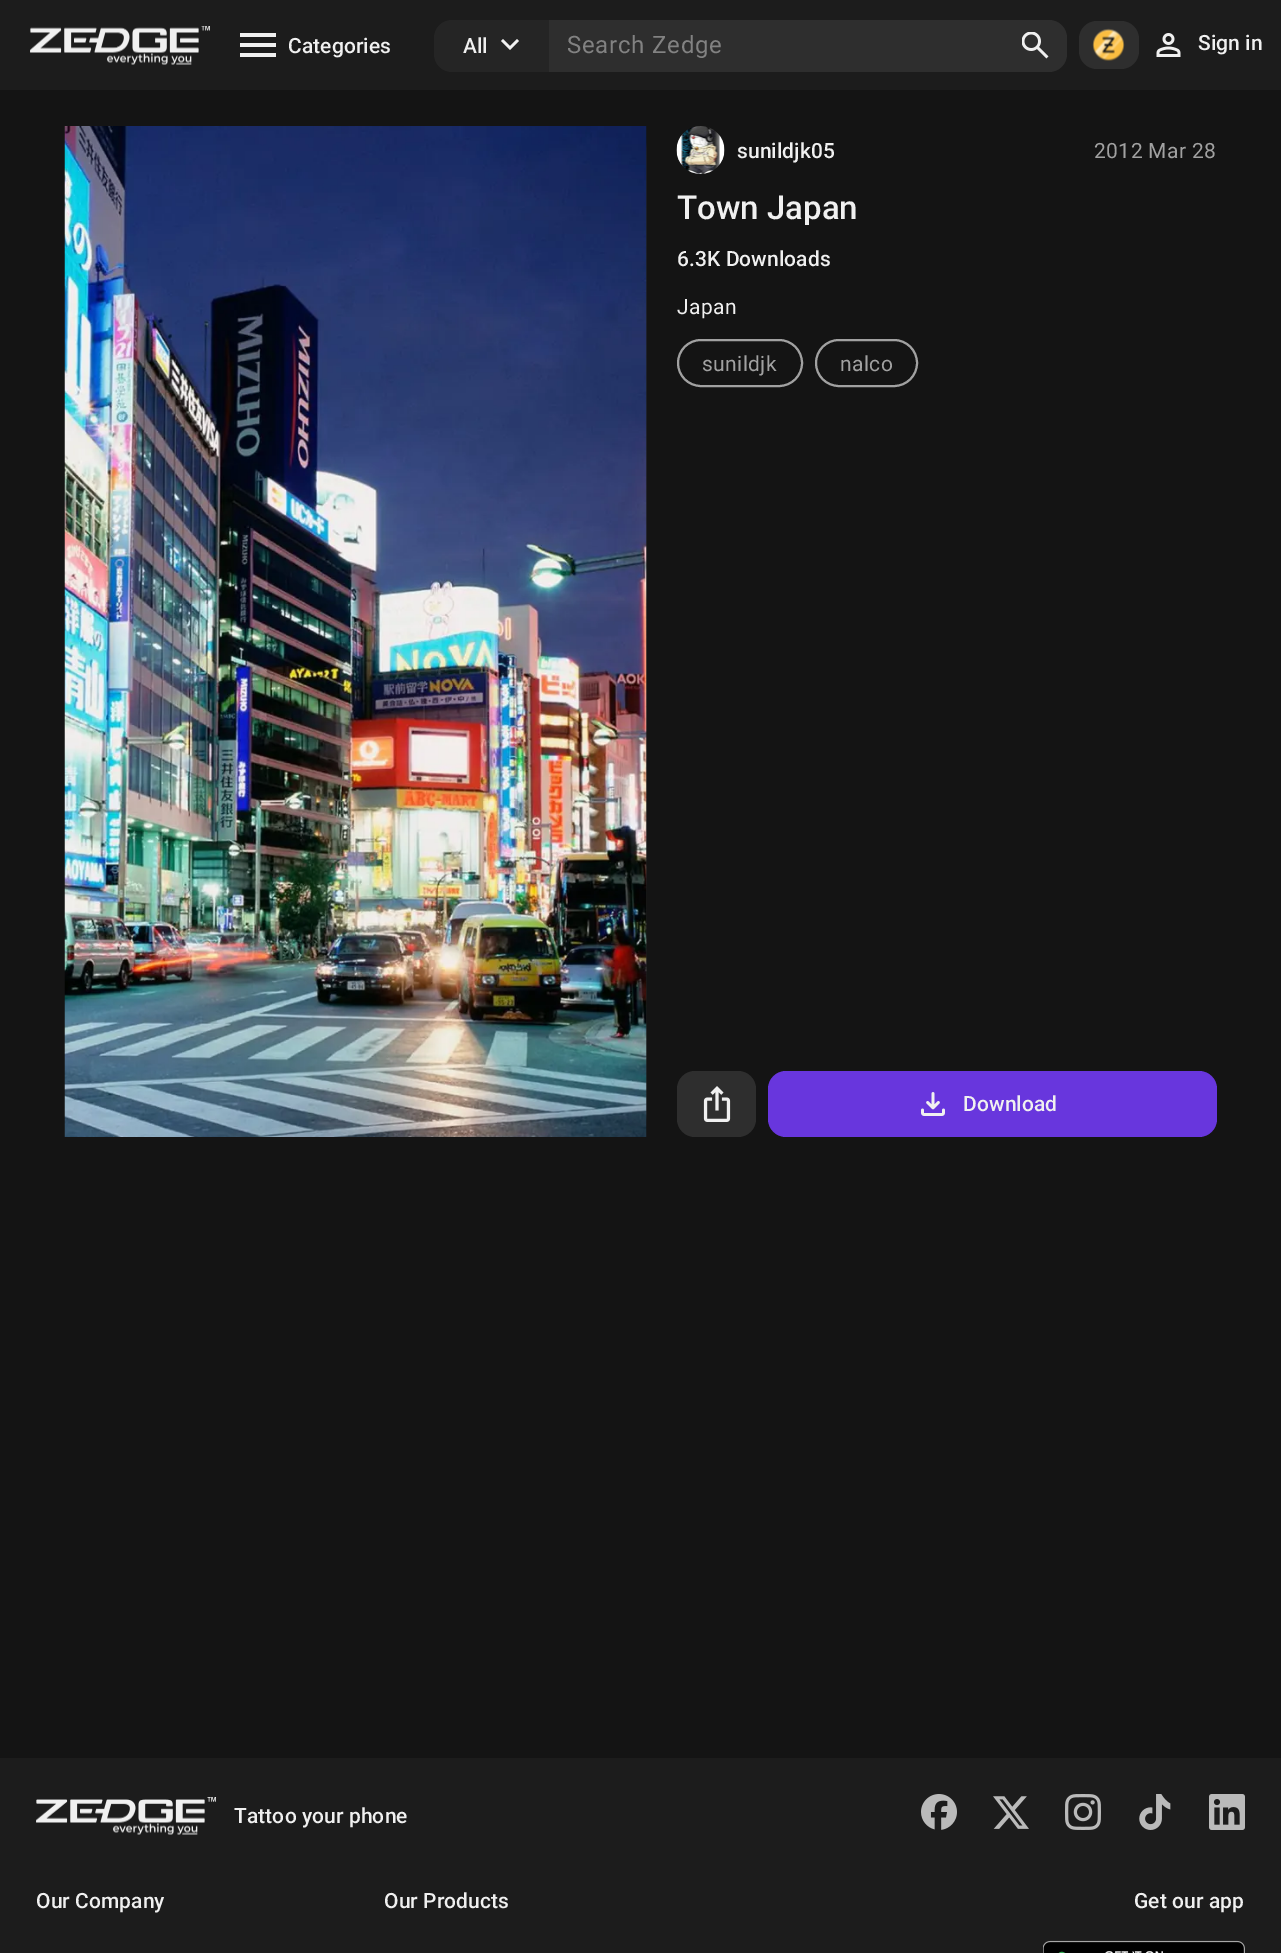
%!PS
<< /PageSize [1281 1953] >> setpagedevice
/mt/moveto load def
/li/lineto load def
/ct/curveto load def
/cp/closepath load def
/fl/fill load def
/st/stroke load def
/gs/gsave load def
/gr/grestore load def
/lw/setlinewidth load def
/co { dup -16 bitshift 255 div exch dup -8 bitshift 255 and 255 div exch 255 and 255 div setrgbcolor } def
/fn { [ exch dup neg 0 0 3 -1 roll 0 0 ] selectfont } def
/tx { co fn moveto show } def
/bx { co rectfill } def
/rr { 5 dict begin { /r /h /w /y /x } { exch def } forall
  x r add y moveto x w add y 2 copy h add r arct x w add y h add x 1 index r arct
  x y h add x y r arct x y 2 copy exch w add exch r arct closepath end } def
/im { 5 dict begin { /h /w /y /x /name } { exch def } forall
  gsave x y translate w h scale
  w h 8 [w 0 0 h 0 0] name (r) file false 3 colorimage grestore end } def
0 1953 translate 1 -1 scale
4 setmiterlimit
0 0 1281 1953 16#141414 bx
0 0 1281 90 16#1C1C1C bx
(media/1.raw) 30 26 180 27 im
(media/2.raw) 107 53 85 12 im
16#F0F0F0 co
240 57 mt 240 53 li 276 53 li 276 57 li cp 240 47 mt 240 43 li 276 43 li 276 47 li cp 240 37 mt 240 33 li 276 33 li 276 37 li cp fl
16#252525 co
452 20 mt 549 20 li 549 72 li 452 72 li 442 72 434 64 434 54 ct 434 38 li 434 28 442 20 452 20 ct cp fl
16#F0F0F0 co
510 50 mt 501 41 li 503 39 li 510 46 li 517 39 li 519 41 li cp fl
16#2E2E2E co
549 20 mt 1049 20 li 1059 20 1067 28 1067 38 ct 1067 54 li 1067 64 1059 72 1049 72 ct 549 72 li cp fl
(media/3.raw) 1022 32 27 27 im
1079 21 60 48 18 rr fl
(media/4.raw) 1092 28 33 33 im
(media/5.raw) 1156 33 25 24 im
16#1C1C1C co
65 126 582 1011 24 rr fl
(media/6.raw) 64 126 583 1011 im
(media/7.raw) 676 126 49 48 im
16#A1A1A1 co
2 lw
678 340 124 46 23 rr st
816 340 101 46 23 rr st
16#2E2E2E co
677 1071 79 66 18 rr fl
(media/8.raw) 703 1086 28 36 im
16#6836DD co
768 1071 449 66 18 rr fl
(media/9.raw) 921 1092 24 24 im
0 1758 1281 195 16#1C1C1C bx
(media/10.raw) 36 1797 180 26 im
(media/2.raw) 113 1823 85 12 im
(media/11.raw) 921 1794 36 36 im
(media/12.raw) 993 1796 36 33 im
(media/13.raw) 1065 1794 36 36 im
(media/14.raw) 1139 1794 32 36 im
(media/15.raw) 1209 1794 36 36 im
(media/16.raw) 1043 1940 202 13 im
/Roboto-Medium 21 fn
16#F0F0F0 co
288 53 mt .1 0 (Categories) ashow
463 53 mt .1 0 (All) ashow
/Roboto-Regular 24 fn
16#828282 co
567 53 mt .75 0 (Search Zedge) ashow
/Roboto-Medium 21 fn
16#F0F0F0 co
1198 50 mt .1 0 (Sign in) ashow
737 158 mt .1 0 (sunildjk05) ashow
/Roboto-Regular 21 fn
16#A1A1A1 co
1094 158 mt .4 0 (2012 Mar 28) ashow
gs
677 192 540 33 rectclip
(Town Japan) 677 219 /Roboto-Medium 33 16#F0F0F0 tx
gr
/Roboto-Medium 21 fn
16#F0F0F0 co
677 266 mt .1 0 (6.3K Downloads) ashow
/Roboto-Regular 21 fn
677 314 mt .4 0 (Japan) ashow
16#A1A1A1 co
702 371 mt .4 0 (sunildjk) ashow
840 371 mt .4 0 (nalco) ashow
/Roboto-Medium 21 fn
16#F0F0F0 co
963 1111 mt .1 0 (Download) ashow
234 1823 mt .1 0 (Tattoo your phone) ashow
36 1908 mt .1 0 (Our Company) ashow
384 1908 mt .1 0 (Our Products) ashow
1134 1908 mt .1 0 (Get our app) ashow
showpage
